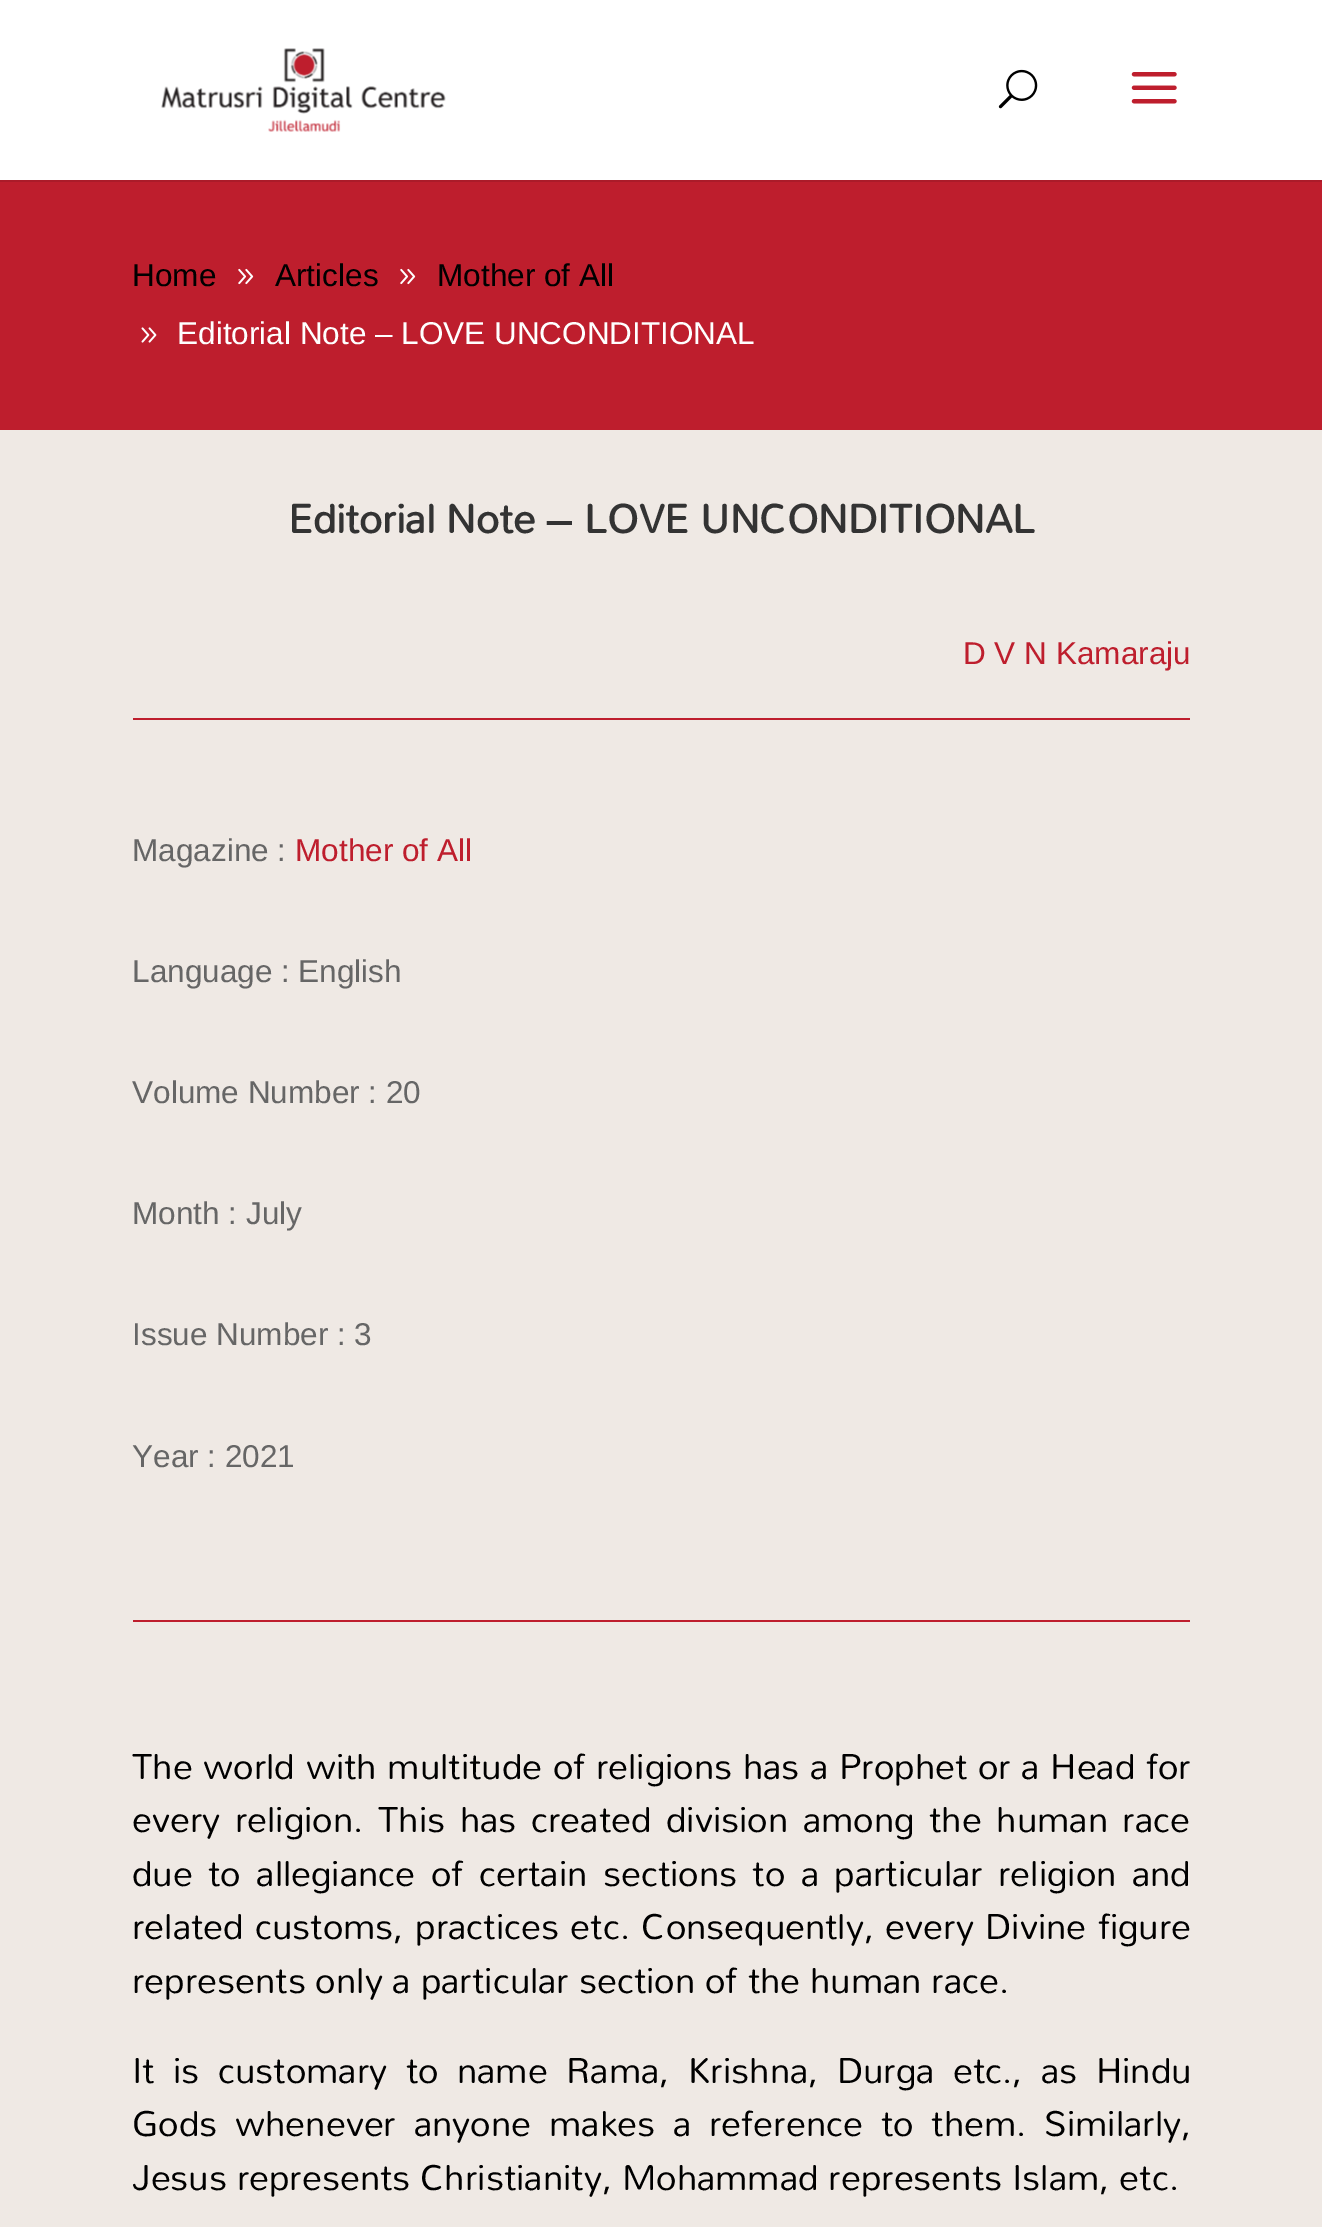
%!PS
<< /PageSize [1322 2227] >> setpagedevice
/mt/moveto load def
/co { dup -16 bitshift 255 div exch dup -8 bitshift 255 and 255 div exch 255 and 255 div setrgbcolor } def
/fn { [ exch dup neg 0 0 3 -1 roll 0 0 ] selectfont } def
/tx { co fn moveto show } def
/bx { co rectfill } def
/im { 5 dict begin { /h /w /y /x /name } { exch def } forall
  gsave x y translate w h scale
  w h 8 [w 0 0 h 0 0] name (r) file false 3 colorimage grestore end } def
0 2227 translate 1 -1 scale
4 setmiterlimit
0 0 1322 2227 16#BE1E2D bx
0 180 1322 2 16#AB1B29 bx
0 0 1322 180 16#FFFFFF bx
(media/1.raw) 161 48 285 84 im
(media/2.raw) 998 69 40 40 im
(media/3.raw) 1131 72 46 32 im
(media/4.raw) 238 268 16 17 im
(media/4.raw) 400 268 16 17 im
(media/5.raw) 141 327 16 16 im
0 430 1322 1797 16#EFE9E4 bx
133 718 1057 2 16#BE1E2D bx
133 1620 1057 2 16#BE1E2D bx
(Home) 132 286 /LiberationSans-Regular 31.5 16#000000 tx
(Articles) 275 286 /LiberationSans-Regular 31.5 16#000000 tx
(Mother of All) 437 286 /LiberationSans-Regular 31.5 16#000000 tx
(Editorial Note – LOVE UNCONDITIONAL) 177 344 /LiberationSans-Regular 31.5 16#FFFFFF tx
(Editorial Note – LOVE UNCONDITIONAL) 288 533 /Mandali-Bold 40.5 16#333333 tx
(D V N Kamaraju) 963 664 /LiberationSans-Regular 31.5 16#BE1E2D tx
(Magazine :) 132 861 /LiberationSans-Regular 31.5 16#666666 tx
(Mother of All) 295 861 /LiberationSans-Regular 31.5 16#BE1E2D tx
(Language : English) 132 982 /LiberationSans-Regular 31.5 16#666666 tx
(Volume Number : 20) 132 1103 /LiberationSans-Regular 31.5 16#666666 tx
(Month : July) 132 1224 /LiberationSans-Regular 31.5 16#666666 tx
(Issue Number : 3) 132 1345 /LiberationSans-Regular 31.5 16#666666 tx
(Year : 2021) 132 1467 /LiberationSans-Regular 31.5 16#666666 tx
/Mandali-Regular 36 fn
16#000000 co
132 1779 mt .75 0 32 (The world with multitude of religions has a Prophet or a Head for) widthshow
132 1832 mt 4.75 0 32 (every religion. This has created division among the human race) widthshow
132 1886 mt 5.5 0 32 (due to allegiance of certain sections to a particular religion and) widthshow
132 1939 mt 1.5 0 32 (related customs, practices etc. Consequently, every Divine figure) widthshow
(represents only a particular section of the human race.) 132 1993 /Mandali-Regular 36 16#000000 tx
132 2083 mt 8.5 0 32 (It is customary to name Rama, Krishna, Durga etc., as Hindu) widthshow
132 2136 mt 8 0 32 (Gods whenever anyone makes a reference to them. Similarly,) widthshow
(Jesus represents Christianity, Mohammad represents Islam, etc.) 132 2190 /Mandali-Regular 36 16#000000 tx
showpage
